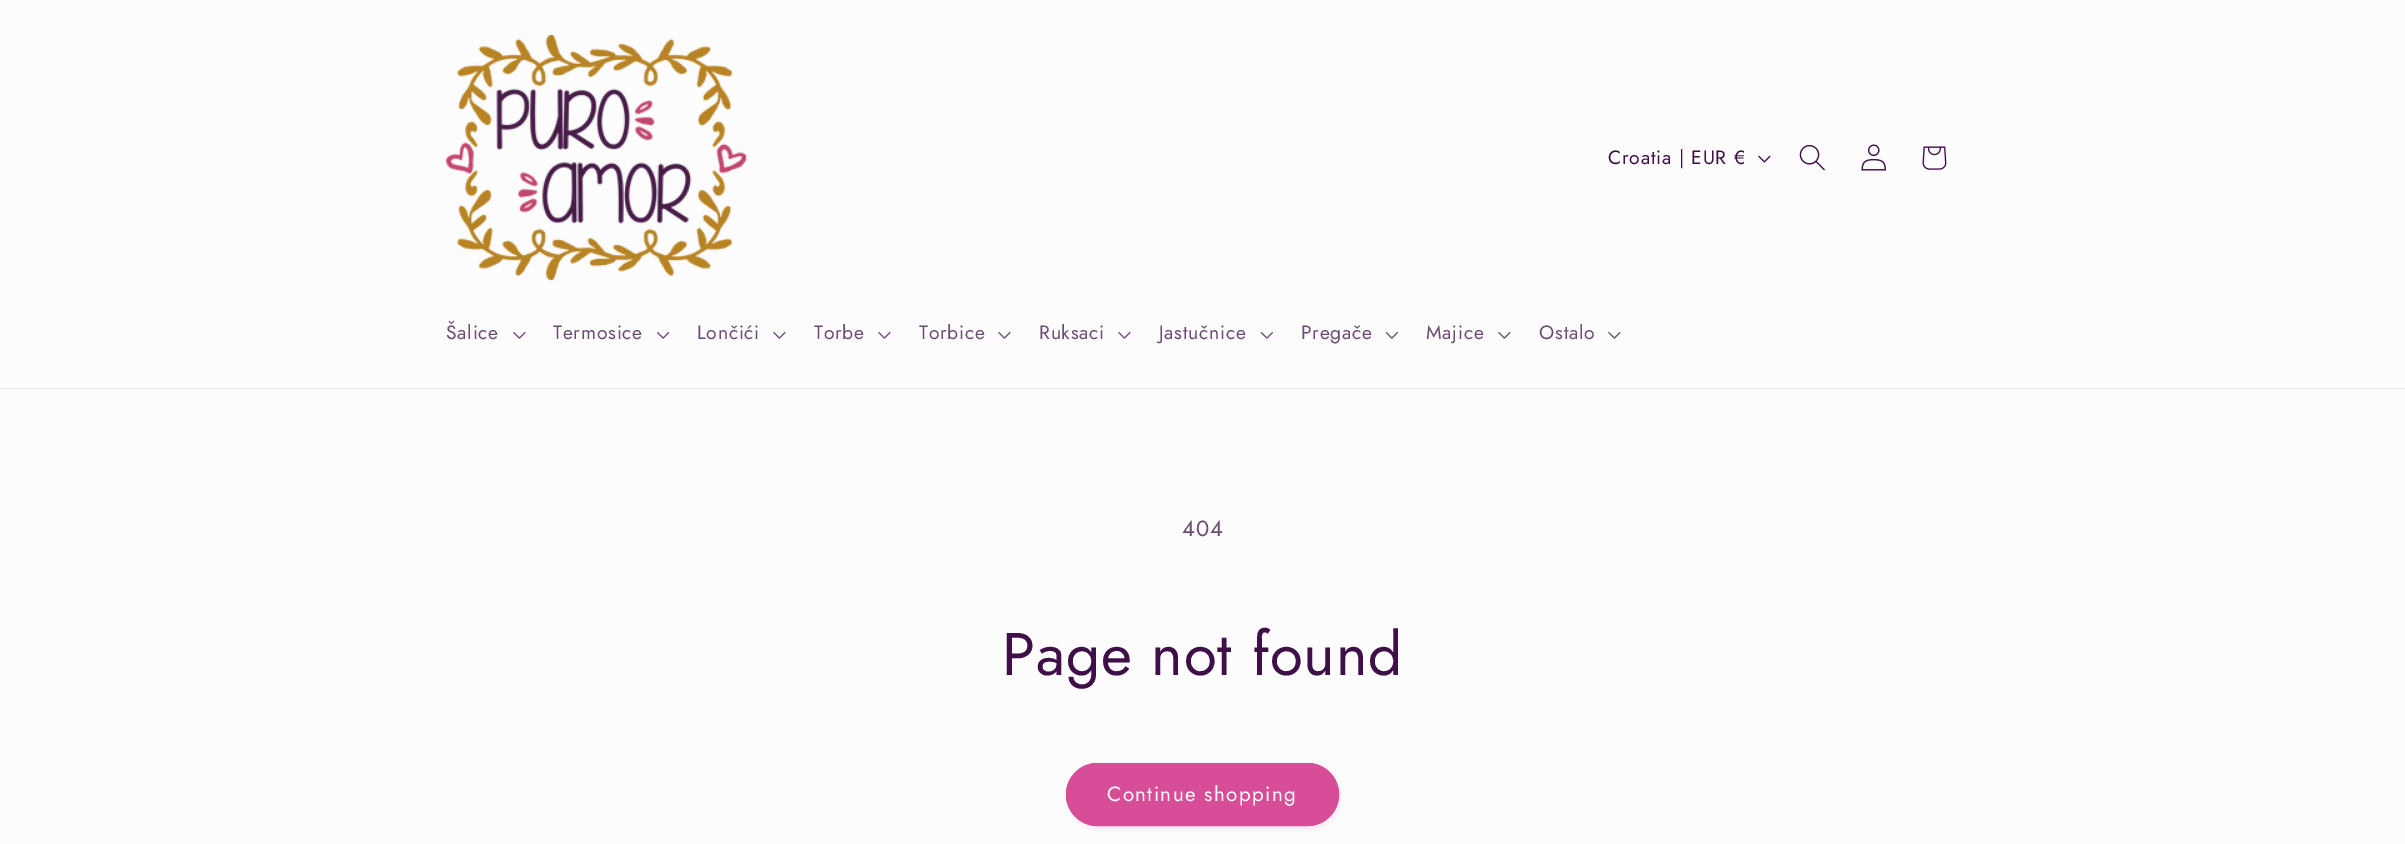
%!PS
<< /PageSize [2405 844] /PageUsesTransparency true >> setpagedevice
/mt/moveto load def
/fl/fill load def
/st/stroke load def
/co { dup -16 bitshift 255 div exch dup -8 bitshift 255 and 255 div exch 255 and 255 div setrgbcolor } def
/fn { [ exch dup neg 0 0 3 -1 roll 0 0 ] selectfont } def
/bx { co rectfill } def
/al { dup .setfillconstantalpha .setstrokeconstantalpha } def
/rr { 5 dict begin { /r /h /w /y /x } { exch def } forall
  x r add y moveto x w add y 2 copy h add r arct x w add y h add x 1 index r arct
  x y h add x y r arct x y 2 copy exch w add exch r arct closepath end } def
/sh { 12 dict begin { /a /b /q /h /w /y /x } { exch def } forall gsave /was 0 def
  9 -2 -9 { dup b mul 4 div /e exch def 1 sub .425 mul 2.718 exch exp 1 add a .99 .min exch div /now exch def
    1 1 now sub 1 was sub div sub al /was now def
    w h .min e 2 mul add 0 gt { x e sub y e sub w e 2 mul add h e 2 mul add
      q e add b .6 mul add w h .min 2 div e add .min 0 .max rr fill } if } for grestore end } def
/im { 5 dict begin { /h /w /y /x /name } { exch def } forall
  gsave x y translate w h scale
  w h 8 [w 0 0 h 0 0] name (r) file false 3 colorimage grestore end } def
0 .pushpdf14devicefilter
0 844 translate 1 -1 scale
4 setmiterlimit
0 0 2405 844 16#FCFCFC bx
0 388 2405 1 16#EDE9EE bx
(media/1.raw) 446 35 301 246 im
(media/2.raw) 1758 155 13 8 im
(media/3.raw) 1799 144 26 27 im
(media/4.raw) 1861 144 26 27 im
(media/5.raw) 1922 146 25 24 im
(media/6.raw) 513 332 13 7 im
(media/7.raw) 657 332 13 7 im
(media/6.raw) 773 332 13 7 im
(media/6.raw) 878 332 13 7 im
(media/6.raw) 998 332 13 7 im
(media/6.raw) 1118 332 13 7 im
(media/8.raw) 1260 332 13 7 im
(media/8.raw) 1385 332 13 7 im
(media/6.raw) 1498 332 13 7 im
(media/6.raw) 1608 332 13 7 im
16#D74D97 co
1069 765 272 64 32 3 .1 sh
1066 763 273 63 31.5 rr fl
1066.5 763.5 272 62 31 rr st
/Jost-Regular 19.25 fn
16#3F1048 co
1608 164 mt .8 0 (Croatia | EUR €) ashow
16#6E4B75 co
446 339 mt .8 0 (Šalice) ashow
553 339 mt .8 0 (Termosice) ashow
697 339 mt .8 0 (Lončići) ashow
814 339 mt .8 0 (Torbe) ashow
919 339 mt .8 0 (Torbice) ashow
1039 339 mt .8 0 (Ruksaci) ashow
1159 339 mt .8 0 (Jastučnice) ashow
1301 339 mt .8 0 (Pregače) ashow
1426 339 mt .8 0 (Majice) ashow
1539 339 mt .8 0 (Ostalo) ashow
/Jost-Regular 22 fn
1182 536 mt .8 0 (404) ashow
/Jost-Regular 60 fn
16#3F1048 co
1002 675 mt .9 0 (Page not found) ashow
/Jost-Regular 20.6 fn
16#FCFCFC co
1107 801 mt 1.4 0 (Continue shopping) ashow
.poppdf14devicefilter showpage
